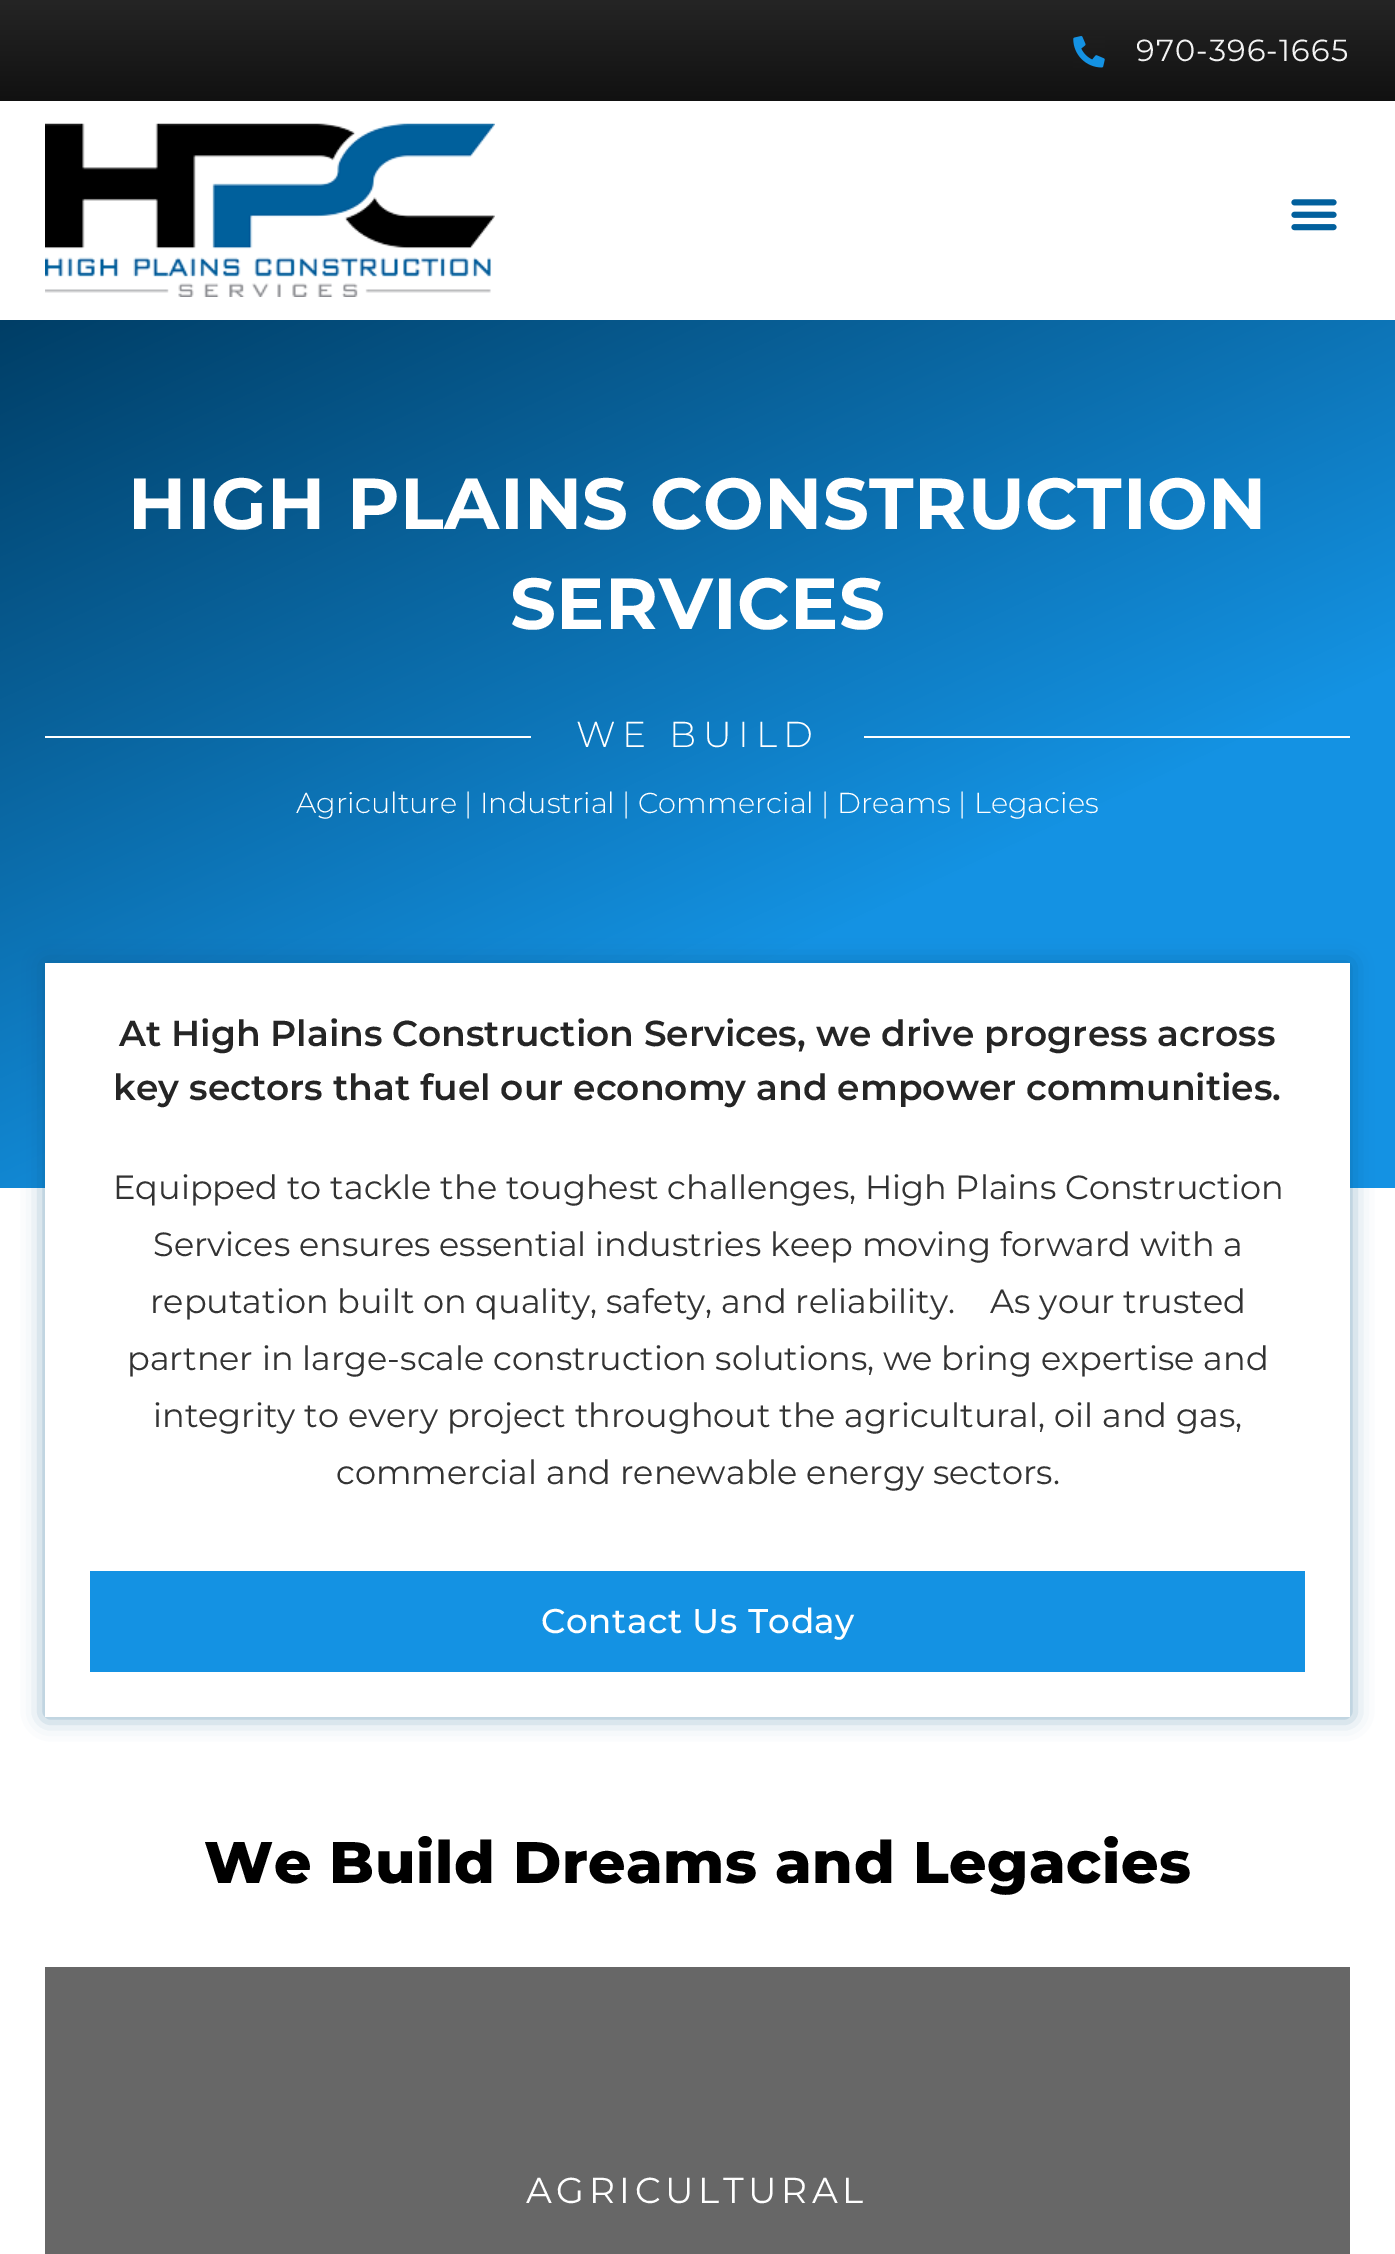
%!PS
<< /PageSize [1395 2254] /PageUsesTransparency true >> setpagedevice
/mt/moveto load def
/li/lineto load def
/cp/closepath load def
/gs/gsave load def
/gr/grestore load def
/co { dup -16 bitshift 255 div exch dup -8 bitshift 255 and 255 div exch 255 and 255 div setrgbcolor } def
/fn { [ exch dup neg 0 0 3 -1 roll 0 0 ] selectfont } def
/tx { co fn moveto show } def
/bx { co rectfill } def
/al { dup .setfillconstantalpha .setstrokeconstantalpha } def
/rr { 5 dict begin { /r /h /w /y /x } { exch def } forall
  x r add y moveto x w add y 2 copy h add r arct x w add y h add x 1 index r arct
  x y h add x y r arct x y 2 copy exch w add exch r arct closepath end } def
/sh { 12 dict begin { /a /b /q /h /w /y /x } { exch def } forall gsave /was 0 def
  9 -2 -9 { dup b mul 4 div /e exch def 1 sub .425 mul 2.718 exch exp 1 add a .99 .min exch div /now exch def
    1 1 now sub 1 was sub div sub al /was now def
    w h .min e 2 mul add 0 gt { x e sub y e sub w e 2 mul add h e 2 mul add
      q e add b .6 mul add w h .min 2 div e add .min 0 .max rr fill } if } for grestore end } def
/im { 5 dict begin { /h /w /y /x /name } { exch def } forall
  gsave x y translate w h scale
  w h 8 [w 0 0 h 0 0] name (r) file false 3 colorimage grestore end } def
0 .pushpdf14devicefilter
0 2254 translate 1 -1 scale
4 setmiterlimit
0 0 1395 2254 16#FFFFFF bx
gs 0 0 mt 1395 0 li 1395 101 li 0 101 li cp clip newpath
<< /ShadingType 2 /ColorSpace /DeviceRGB /Coords [698 0 698 101] /Extend [true true] /Function << /FunctionType 2 /Domain [0 1] /C0 [.145 .145 .145] /C1 [.067 .067 .067] /N 1 >> >> shfill gr
(media/1.raw) 1073 36 32 32 im
(media/2.raw) 45 123 450 174 im
(media/3.raw) 1291 199 46 32 im
gs 0 320 mt 1395 320 li 1395 1188 li 0 1188 li cp clip newpath
<< /ShadingType 2 /ColorSpace /DeviceRGB /Coords [407 130 988 1378] /Extend [true true] /Function << /FunctionType 3 /Domain [0 1] /Functions [<< /FunctionType 2 /Domain [0 1] /C0 [0 .243 .4] /C1 [.078 .573 .89] /N 1 >> << /FunctionType 2 /Domain [0 1] /C0 [.078 .573 .89] /C1 [.078 .573 .89] /N 1 >>] /Bounds [.66] /Encode [0 1 0 1] >> >> shfill gr
45 736 486 2 16#FFFFFF bx
864 736 486 2 16#FFFFFF bx
16#085485 co
45 963 1305 754 0 11 .5 sh
45 963 1305 754 16#FFFFFF bx
90 1571 1215 101 16#1492E3 bx
45 1967 1305 287 16#676767 bx
/Montserrat-Regular 30.5 fn
16#F3F3F3 co
1136 61 mt 1.1 0 (970-396-1665) ashow
/Montserrat-Bold 72 fn
16#FFFFFF co
128 529 mt .55 0 (HIGH PLAINS CONSTRUCTION) ashow
510 629 mt .55 0 (SERVICES) ashow
/Montserrat-Light 36 fn
576 747 mt 6.75 0 (WE BUILD) ashow
(Agriculture | Industrial | Commercial | Dreams | Legacies) 296 813 /Montserrat-Light 28.8 16#FFFFFF tx
(At High Plains Construction Services, we drive progress across) 119 1046 /Montserrat-SemiBold 36 16#252525 tx
(key sectors that fuel our economy and empower communities.) 113 1100 /Montserrat-SemiBold 36 16#252525 tx
(Equipped to tackle the toughest challenges, High Plains Construction) 113 1199 /Montserrat-Regular 33.5 16#333333 tx
(Services ensures essential industries keep moving forward with a) 153 1256 /Montserrat-Regular 33.5 16#333333 tx
(reputation built on quality, safety, and reliability.    As your trusted) 150 1313 /Montserrat-Regular 33.5 16#333333 tx
(partner in large-scale construction solutions, we bring expertise and) 127 1370 /Montserrat-Regular 33.5 16#333333 tx
(integrity to every project throughout the agricultural, oil and gas,) 153 1427 /Montserrat-Regular 33.5 16#333333 tx
(commercial and renewable energy sectors.) 336 1484 /Montserrat-Regular 33.5 16#333333 tx
/Montserrat-Medium 34.25 fn
16#FFFFFF co
541 1633 mt .55 0 (Contact Us Today) ashow
/Montserrat-ExtraBold 58.5 fn
16#000000 co
204 1883 mt .55 0 (We Build Dreams and Legacies) ashow
/Montserrat-Regular 36 fn
16#FFFFFF co
526 2203 mt 4.5 0 (AGRICULTURAL) ashow
.poppdf14devicefilter showpage
